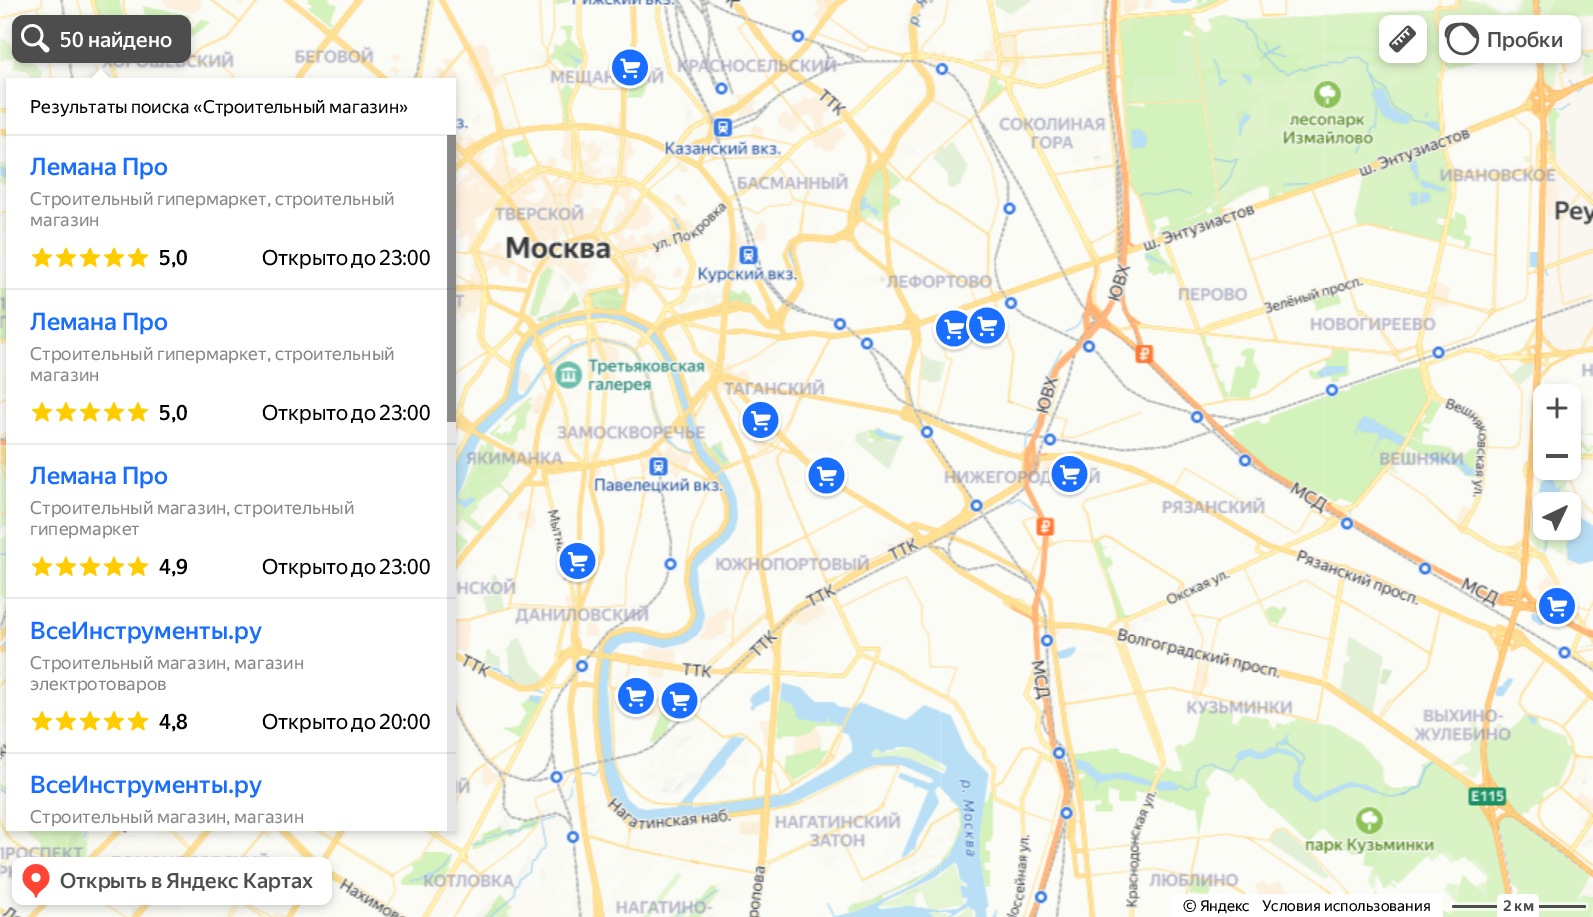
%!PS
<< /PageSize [1593 917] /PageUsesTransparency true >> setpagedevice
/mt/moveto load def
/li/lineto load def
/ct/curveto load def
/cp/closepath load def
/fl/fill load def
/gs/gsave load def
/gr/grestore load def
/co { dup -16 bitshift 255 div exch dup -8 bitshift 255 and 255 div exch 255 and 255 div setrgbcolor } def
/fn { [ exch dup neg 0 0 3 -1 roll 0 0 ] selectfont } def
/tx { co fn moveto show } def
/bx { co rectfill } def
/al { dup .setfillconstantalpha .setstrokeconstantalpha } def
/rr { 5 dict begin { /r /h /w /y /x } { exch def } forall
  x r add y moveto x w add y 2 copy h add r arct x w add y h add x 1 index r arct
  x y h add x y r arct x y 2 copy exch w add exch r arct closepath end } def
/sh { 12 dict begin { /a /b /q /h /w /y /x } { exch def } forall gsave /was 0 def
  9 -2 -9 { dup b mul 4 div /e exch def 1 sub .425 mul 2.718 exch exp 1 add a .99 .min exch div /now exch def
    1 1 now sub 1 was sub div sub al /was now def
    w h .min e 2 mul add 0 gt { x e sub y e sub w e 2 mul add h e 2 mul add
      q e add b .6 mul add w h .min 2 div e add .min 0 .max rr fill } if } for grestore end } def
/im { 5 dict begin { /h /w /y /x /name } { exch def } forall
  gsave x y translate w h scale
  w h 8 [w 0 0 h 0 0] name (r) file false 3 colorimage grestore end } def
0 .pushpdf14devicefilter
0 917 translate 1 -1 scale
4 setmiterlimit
0 0 1593 917 16#FFFFFF bx
(media/1.raw) 0 0 1325 917 im
(media/2.raw) 0 0 173 252 im
(media/4.raw) 556 0 385 252 im
(media/3.raw) 172 0 385 252 im
(media/5.raw) 940 0 385 252 im
(media/6.raw) 1324 0 269 252 im
(media/7.raw) 0 252 6 384 im
(media/8.raw) 456 252 101 384 im
(media/9.raw) 556 252 385 384 im
(media/10.raw) 940 252 385 384 im
(media/11.raw) 1324 252 269 384 im
(media/12.raw) 0 636 173 281 im
(media/14.raw) 556 636 385 281 im
(media/13.raw) 172 636 385 281 im
(media/15.raw) 940 636 385 281 im
(media/16.raw) 1324 636 269 281 im
(media/17.raw) 607 46 46 46 im
(media/18.raw) 620 58 21 21 im
(media/19.raw) 931 307 43 46 im
(media/18.raw) 944 319 21 21 im
(media/20.raw) 964 304 46 46 im
(media/18.raw) 977 316 21 21 im
(media/21.raw) 738 399 45 46 im
(media/22.raw) 750 411 21 20 im
(media/23.raw) 804 454 45 46 im
(media/24.raw) 816 466 21 21 im
(media/25.raw) 1047 453 45 46 im
(media/22.raw) 1059 465 21 20 im
(media/26.raw) 555 540 45 46 im
(media/22.raw) 567 552 21 20 im
(media/27.raw) 1534 585 46 46 im
(media/28.raw) 1547 597 21 20 im
(media/30.raw) 657 680 45 45 im
(media/29.raw) 613 675 46 46 im
(media/28.raw) 626 687 21 20 im
(media/24.raw) 669 691 21 21 im
16#000000 co
12 18 179 48 12 4.5 .2 sh
16#4D4D4D co
12 15 179 48 12 rr fl
(media/31.raw) 21 24 29 29 im
16#000000 co
1379 18 48 48 12 4.5 .2 sh
16#FFFFFF co
1379 15 48 48 12 rr fl
(media/32.raw) 1389 25 27 28 im
16#000000 co
1439 18 142 48 12 4.5 .2 sh
16#FFFFFF co
1439 15 142 48 12 rr fl
(media/33.raw) 1444 22 36 34 im
16#000000 co
1533 387 48 96 18 4.5 .2 sh
16#FFFFFF co
1545 384 mt 1569 384 li 1575.5 384 1581 389.5 1581 396 ct 1581 432 li 1533 432 li 1533 396 li 1533 389.5 1538.5 384 1545 384 ct cp fl
(media/34.raw) 1546 397 22 22 im
1533 432 mt 1581 432 li 1581 468 li 1581 474.5 1575.5 480 1569 480 ct 1545 480 li 1538.5 480 1533 474.5 1533 468 ct cp fl
1546 454 22 4 16#4D4D4D bx
16#000000 co
1533 495 48 48 12 4.5 .2 sh
16#FFFFFF co
1533 492 48 48 12 rr fl
(media/35.raw) 1542 505 26 26 im
16#000000 co
12 860 320 48 12 4.5 .2 sh
16#FFFFFF co
12 857 320 48 12 rr fl
(media/36.raw) 22 864 28 34 im
1178 894 mt 1437 894 li 1440.5 894 1443 896.5 1443 900 ct 1443 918 li 1172 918 li 1172 900 li 1172 896.5 1174.5 894 1178 894 ct cp fl
0.6 al
1449 902 140 9 4.5 rr fl
1 al
16#4D4D4D co
1452 905 134 3 1.5 rr fl
16#FFFFFF co
1503 894 mt 1533 894 li 1536.5 894 1539 896.5 1539 900 ct 1539 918 li 1497 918 li 1497 900 li 1497 896.5 1499.5 894 1503 894 ct cp fl
16#000000 co
6 81 450 753 0 4.5 .2 sh
6 78 450 753 16#FFFFFF bx
gs
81 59 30 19 rectclip
16#000000 co
93 75 15 15 0 4.5 .2 sh
gr
gs
81 59 30 19 rectclip
100.5 69 mt 111 79.5 li 100.5 90 li 90 79.5 li cp fl
gr
6 134 450 2 16#EBEBEB bx
6 288 450 2 16#EBEBEB bx
(media/37.raw) 31 247 22 20 im
(media/37.raw) 55 247 22 20 im
(media/37.raw) 79 247 22 20 im
(media/37.raw) 103 247 22 20 im
(media/37.raw) 127 247 22 20 im
6 443 450 2 16#EBEBEB bx
(media/38.raw) 31 402 22 20 im
(media/38.raw) 55 402 22 20 im
(media/38.raw) 79 402 22 20 im
(media/38.raw) 103 402 22 20 im
(media/38.raw) 127 402 22 20 im
6 597 450 2 16#EBEBEB bx
(media/37.raw) 31 556 22 20 im
(media/37.raw) 55 556 22 20 im
(media/37.raw) 79 556 22 20 im
(media/37.raw) 103 556 22 20 im
(media/37.raw) 127 556 22 20 im
6 752 450 2 16#EBEBEB bx
(media/38.raw) 31 711 22 20 im
(media/38.raw) 55 711 22 20 im
(media/38.raw) 79 711 22 20 im
(media/38.raw) 103 711 22 20 im
(media/38.raw) 127 711 22 20 im
0.1 al
447 135 9 696 16#000000 bx
0.4 al
447 135 9 287 16#000000 bx
1 al
(50 найдено) 60 47 /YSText-Medium 21 16#FFFFFF tx
(Пробки) 1487 47 /YSText-Medium 21 16#4D4D4D tx
(Открыть в Яндекс Картах) 60 888 /YSText-Medium 21 16#4D4D4D tx
(© Яндекс) 1183 911 /YSText-Regular 15 16#000000 tx
(Условия использования) 1262 911 /YSText-Regular 15 16#000000 tx
(2 км) 1503 911 /YSText-Bold 15 16#4D4D4D tx
(Результаты поиска «Строительный магазин») 30 113 /YSText-Regular 18 16#000000 tx
(Лемана Про) 30 175 /YSText-Medium 24 16#196DFF tx
(Строительный гипермаркет, строительный) 30 205 /YSText-Regular 18 16#878787 tx
(магазин) 30 226 /YSText-Regular 18 16#878787 tx
(5,0) 159 265 /YSText-Medium 21 16#000000 tx
/YSText-Regular 21 fn
262 265 mt -1 0 32 (Открыто до 23:00) widthshow
(Лемана Про) 30 330 /YSText-Medium 24 16#196DFF tx
(Строительный гипермаркет, строительный) 30 360 /YSText-Regular 18 16#878787 tx
(магазин) 30 381 /YSText-Regular 18 16#878787 tx
(5,0) 159 420 /YSText-Medium 21 16#000000 tx
/YSText-Regular 21 fn
262 420 mt -1 0 32 (Открыто до 23:00) widthshow
(Лемана Про) 30 484 /YSText-Medium 24 16#196DFF tx
(Строительный магазин, строительный) 30 514 /YSText-Regular 18 16#878787 tx
(гипермаркет) 30 535 /YSText-Regular 18 16#878787 tx
(4,9) 159 574 /YSText-Medium 21 16#000000 tx
/YSText-Regular 21 fn
262 574 mt -1 0 32 (Открыто до 23:00) widthshow
(ВсеИнструменты.ру) 30 639 /YSText-Medium 24 16#196DFF tx
(Строительный магазин, магазин) 30 669 /YSText-Regular 18 16#878787 tx
(электротоваров) 30 690 /YSText-Regular 18 16#878787 tx
(4,8) 159 729 /YSText-Medium 21 16#000000 tx
/YSText-Regular 21 fn
262 729 mt -1 0 32 (Открыто до 20:00) widthshow
(ВсеИнструменты.ру) 30 793 /YSText-Medium 24 16#196DFF tx
(Строительный магазин, магазин) 30 823 /YSText-Regular 18 16#878787 tx
.poppdf14devicefilter showpage
